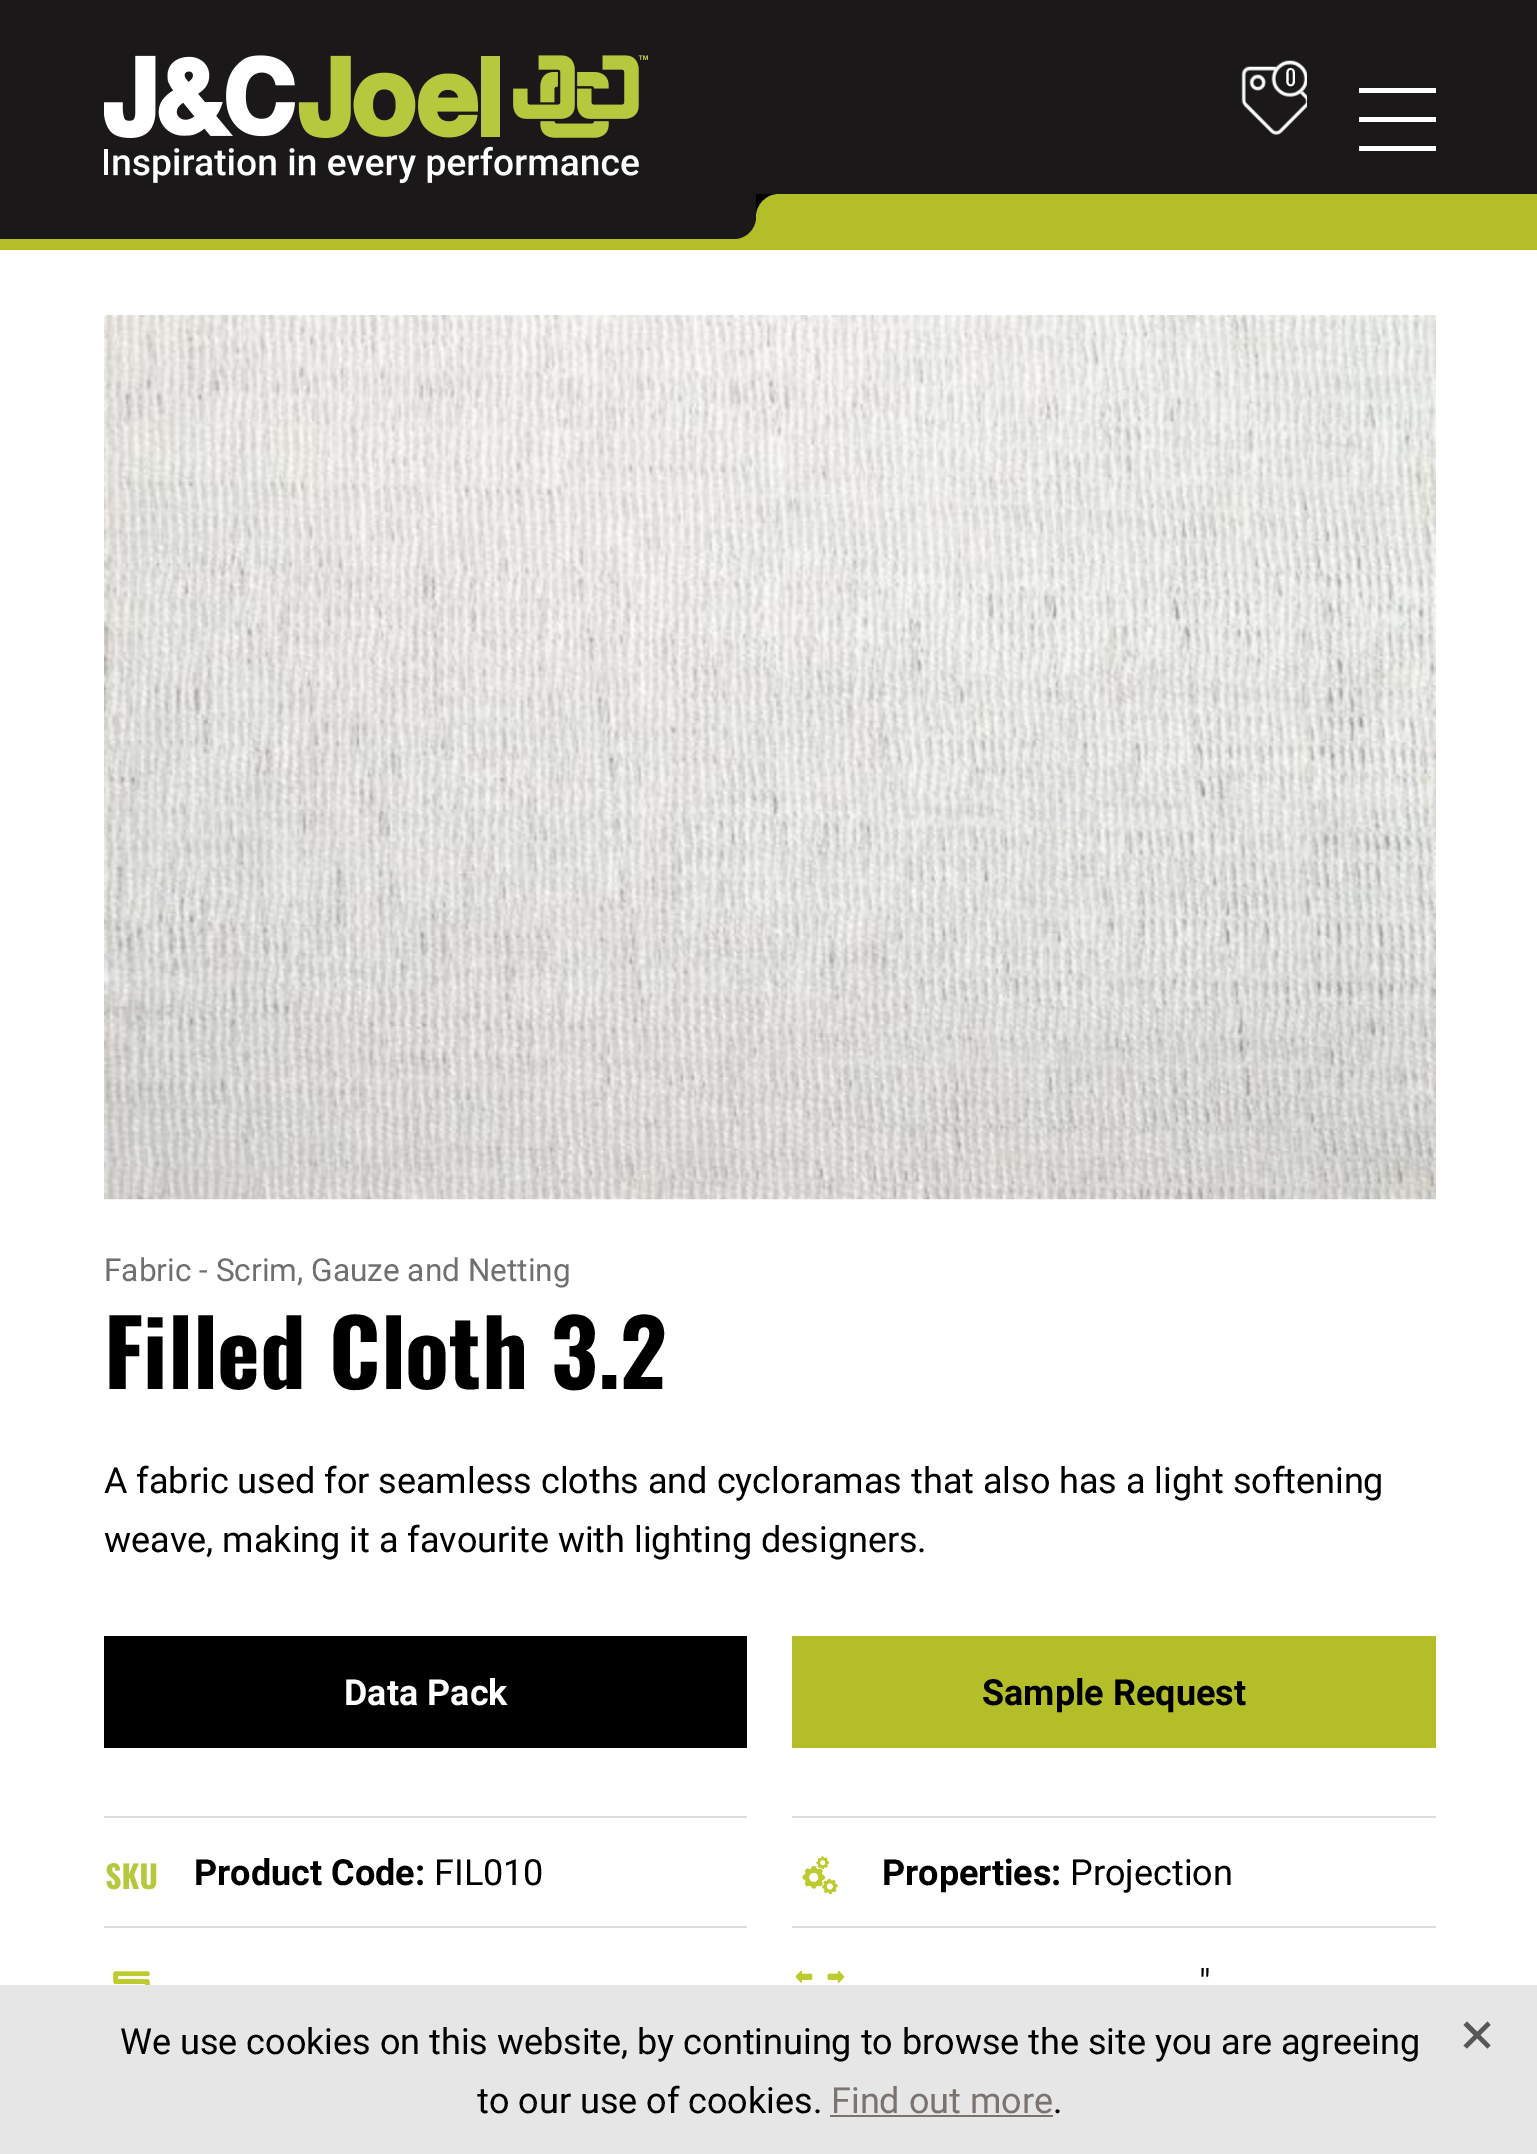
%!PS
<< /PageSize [1537 2154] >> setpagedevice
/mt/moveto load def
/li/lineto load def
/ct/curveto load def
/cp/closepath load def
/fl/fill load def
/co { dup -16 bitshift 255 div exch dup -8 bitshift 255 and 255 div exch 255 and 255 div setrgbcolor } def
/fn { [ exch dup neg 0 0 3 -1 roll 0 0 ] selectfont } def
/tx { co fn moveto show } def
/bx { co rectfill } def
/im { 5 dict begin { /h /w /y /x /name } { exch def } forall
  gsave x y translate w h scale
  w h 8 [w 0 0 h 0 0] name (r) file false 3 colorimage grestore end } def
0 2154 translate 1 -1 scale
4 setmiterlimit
0 0 1537 2154 16#FFFFFF bx
0 0 1537 239 16#1A1818 bx
0 239 1537 11 16#B3BE28 bx
(media/1.raw) 104 55 544 129 im
(media/2.raw) 1241 60 66 75 im
1359 88 77 5 16#FFFFFF bx
1359 117 77 5 16#FFFFFF bx
1359 146 77 5 16#FFFFFF bx
734 194 803 45 16#B3BE28 bx
16#1A1818 co
734 194 mt 756 194 li 756 217 li 756 229 746 239 734 239 ct cp fl
756 194 23 23 16#000000 bx
16#B3BE28 co
779 194 mt 779 239 li 756 239 li 756 217 li 756 204.5 766.5 194 779 194 ct cp fl
(media/3.raw) 104 315 1332 885 im
104 1636 643 112 16#000000 bx
792 1636 644 112 16#B3BE28 bx
104 1816 643 2 16#DDDDDD bx
(media/4.raw) 106 1863 51 27 im
792 1816 644 2 16#DDDDDD bx
(media/5.raw) 802 1856 36 39 im
104 1926 643 2 16#DDDDDD bx
(media/6.raw) 113 1971 37 14 im
792 1926 644 2 16#DDDDDD bx
(media/7.raw) 795 1970 50 13 im
0 1985 1537 169 16#E6E6E6 bx
830 2115 223 2 16#7B7370 bx
16#575757 co
1463.5 2045.5 mt 1487.5 2021.5 li 1490.5 2025 li 1467 2048.5 li cp fl
1467 2021.5 mt 1490.5 2045.5 li 1487.5 2048.5 li 1463.5 2025 li cp fl
(0) 1285 86 /Oswald-Regular 22 16#FFFFFF tx
(Fabric - Scrim, Gauze and Netting) 104 1281 /Roboto-Regular 31.6 16#6F6F6F tx
(Filled Cloth 3.2) 104 1389 /Oswald-Bold 91 16#000000 tx
(A fabric used for seamless cloths and cycloramas that also has a light softening) 104 1493 /Roboto-Regular 36 16#000000 tx
(weave, making it a favourite with lighting designers.) 104 1552 /Roboto-Regular 36 16#000000 tx
(Data Pack) 344 1705 /Roboto-Bold 36 16#FFFFFF tx
(Sample Request) 982 1705 /Roboto-Bold 36 16#000000 tx
(Product Code:) 194 1885 /Roboto-Bold 36 16#000000 tx
(FIL010) 434 1885 /Roboto-Regular 36 16#000000 tx
(Properties:) 882 1885 /Roboto-Bold 36 16#000000 tx
(Projection) 1070 1885 /Roboto-Regular 36 16#000000 tx
(") 1199 1995 /Roboto-Regular 36 16#000000 tx
(We use cookies on this website, by continuing to browse the site you are agreeing) 120 2054 /Roboto-Regular 36 16#000000 tx
(to our use of cookies.) 477 2113 /Roboto-Regular 36 16#000000 tx
(Find out more) 831 2113 /Roboto-Regular 36 16#7B7370 tx
(.) 1053 2113 /Roboto-Regular 36 16#000000 tx
showpage
